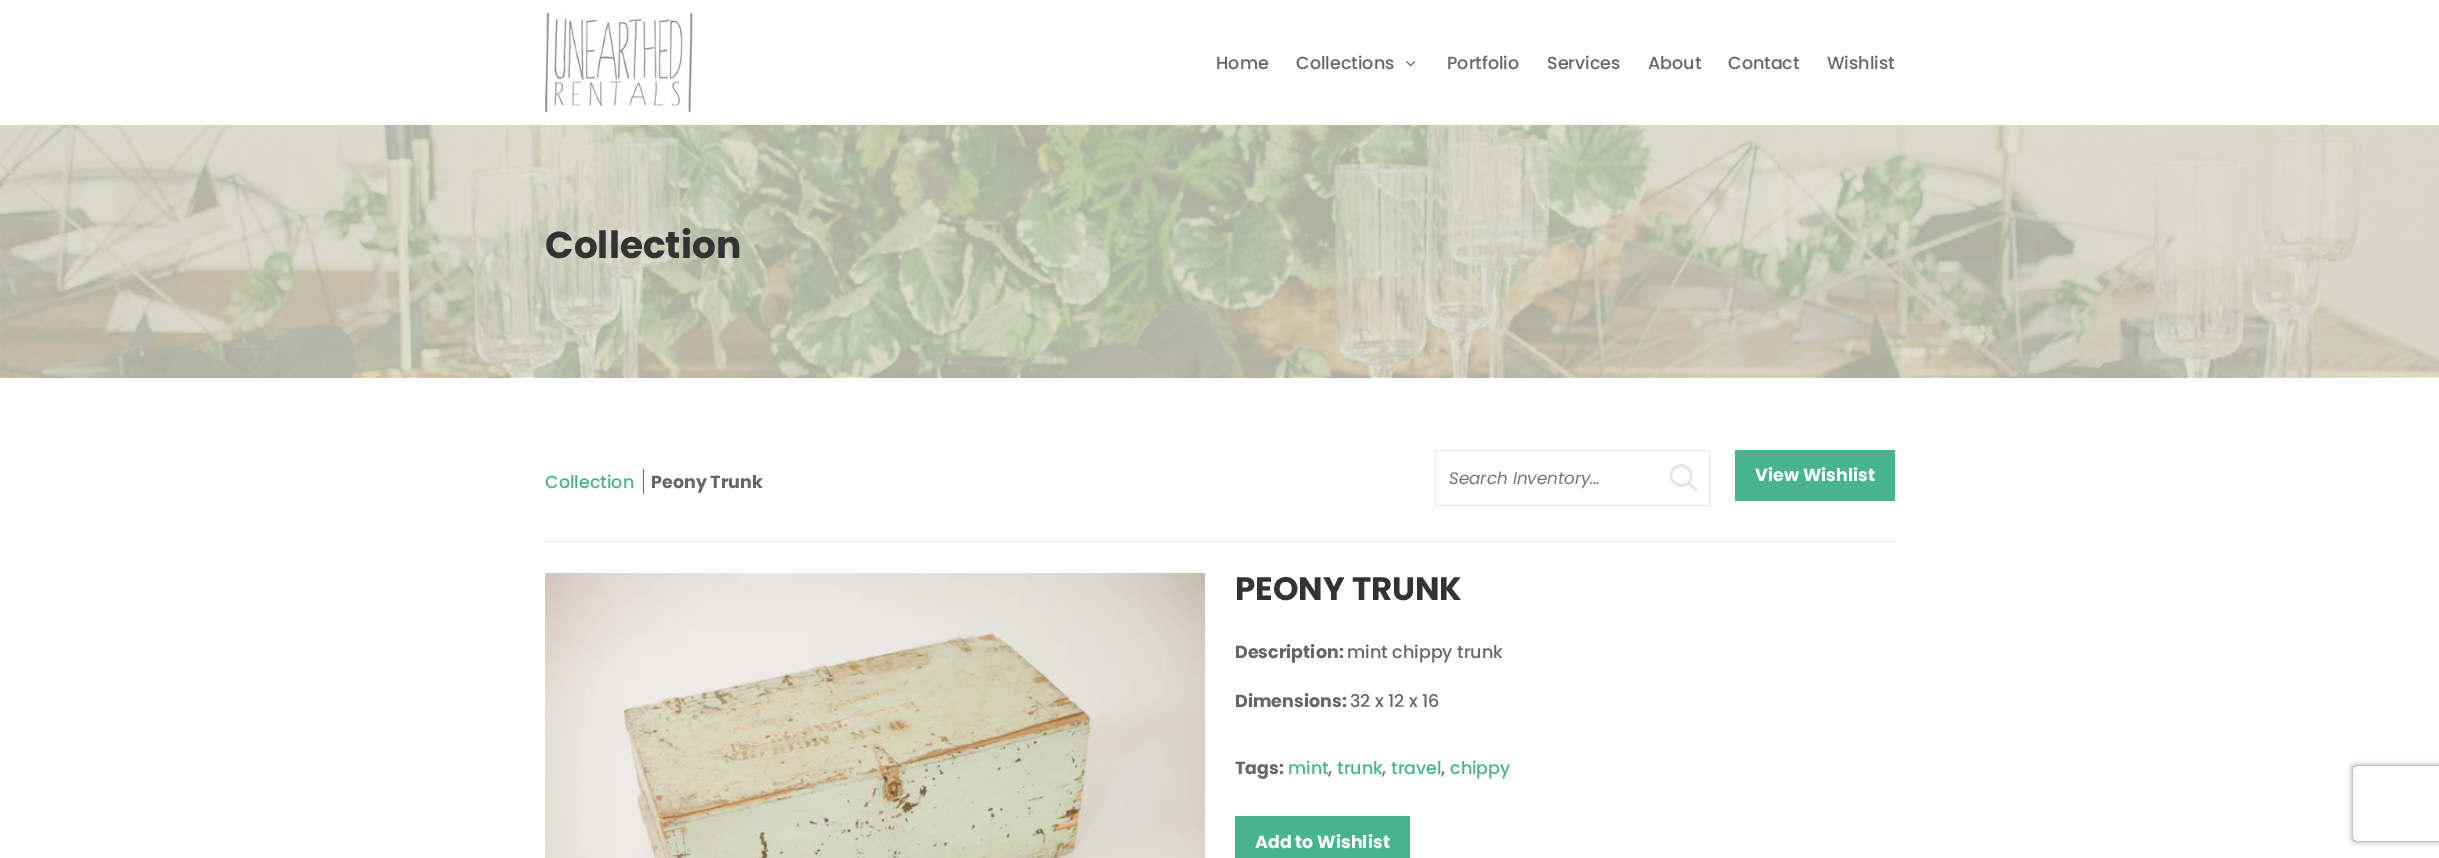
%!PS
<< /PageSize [2439 858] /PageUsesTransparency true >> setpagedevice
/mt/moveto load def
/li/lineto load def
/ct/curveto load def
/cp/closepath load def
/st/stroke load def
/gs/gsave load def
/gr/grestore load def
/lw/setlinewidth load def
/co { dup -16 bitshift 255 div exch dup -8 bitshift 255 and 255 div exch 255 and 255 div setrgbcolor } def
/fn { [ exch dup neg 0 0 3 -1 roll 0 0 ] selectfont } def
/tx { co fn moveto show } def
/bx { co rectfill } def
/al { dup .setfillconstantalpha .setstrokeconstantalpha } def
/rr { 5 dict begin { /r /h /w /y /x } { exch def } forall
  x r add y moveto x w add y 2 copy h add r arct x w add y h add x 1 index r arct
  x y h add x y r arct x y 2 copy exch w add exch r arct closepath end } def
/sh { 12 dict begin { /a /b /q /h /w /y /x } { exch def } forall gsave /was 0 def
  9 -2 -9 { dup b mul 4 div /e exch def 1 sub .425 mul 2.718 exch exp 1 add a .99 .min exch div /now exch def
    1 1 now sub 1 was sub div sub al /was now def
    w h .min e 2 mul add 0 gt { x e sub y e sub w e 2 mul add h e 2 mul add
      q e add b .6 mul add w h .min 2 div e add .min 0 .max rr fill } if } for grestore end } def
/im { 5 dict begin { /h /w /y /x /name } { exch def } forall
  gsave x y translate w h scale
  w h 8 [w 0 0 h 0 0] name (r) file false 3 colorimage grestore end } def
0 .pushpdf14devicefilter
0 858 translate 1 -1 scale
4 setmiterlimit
0 0 2439 858 16#FFFFFF bx
(media/1.raw) 545 12 148 101 im
(media/2.raw) 1406 61 10 6 im
(media/3.raw) 0 125 2439 253 im
545 541 1350 1 16#EAEAEA bx
643 469 1 25 16#666666 bx
16#EAEAEA co
1435.5 450.5 274 55 rectstroke
16#E3E5E9 co
2.5 lw
1674 468.5 mt 1683.5 459 1697.5 473.5 1688.5 482.5 ct 1679 492 1664.5 477.5 1674 468.5 ct cp st
2 setlinecap
1688.5 483 mt 1696 490 li st
1735 450 160 51 16#48B48F bx
(media/4.raw) 545 573 660 285 im
1235 816 175 42 16#48B48F bx
gs
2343 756 mt 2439 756 li 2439 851 li 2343 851 li cp 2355.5 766 mt 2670.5 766 li 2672 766 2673 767 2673 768.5 ct 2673 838.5 li 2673 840 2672 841 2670.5 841 ct 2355.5 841 li 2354 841 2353 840 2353 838.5 ct 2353 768.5 li 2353 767 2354 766 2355.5 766 ct cp eoclip newpath
16#808080 co
2353 766 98 75 2.5 3 1 sh
gr
(Home) 1216 69 /Poppins-Medium 17.5 16#666666 tx
(Collections) 1296 69 /Poppins-Medium 17.5 16#666666 tx
(Portfolio) 1447 69 /Poppins-Medium 17.5 16#666666 tx
(Services) 1547 69 /Poppins-Medium 17.5 16#666666 tx
(About) 1648 69 /Poppins-Medium 17.5 16#666666 tx
(Contact) 1728 69 /Poppins-Medium 17.5 16#666666 tx
(Wishlist) 1827 69 /Poppins-Medium 17.5 16#666666 tx
(Collection) 545 258 /Poppins-Bold 37.5 16#333333 tx
(Collection) 545 488 /Poppins-Medium 17.5 16#48B48F tx
(Peony Trunk) 651 488 /Poppins-Bold 17.5 16#666666 tx
(Search Inventory…) 1449 484 /Poppins-Italic 16.75 16#757575 tx
(View Wishlist) 1755 481 /Poppins-Bold 17.5 16#FFFFFF tx
(PEONY TRUNK) 1235 600 /Poppins-Bold 32.5 16#333333 tx
(Description:) 1235 658 /Poppins-Bold 17.5 16#666666 tx
(mint chippy trunk) 1347 658 /Poppins-Medium 17.5 16#666666 tx
(Dimensions:) 1235 707 /Poppins-Bold 17.5 16#666666 tx
(32 x 12 x 16) 1350 707 /Poppins-Medium 17.5 16#666666 tx
(Tags:) 1235 774 /Poppins-Bold 17.5 16#666666 tx
(mint) 1288 774 /Poppins-Medium 17.5 16#48B48F tx
(,) 1328 774 /Poppins-Medium 17.5 16#666666 tx
(trunk) 1337 774 /Poppins-Medium 17.5 16#48B48F tx
(,) 1382 774 /Poppins-Medium 17.5 16#666666 tx
(travel) 1391 774 /Poppins-Medium 17.5 16#48B48F tx
(,) 1441 774 /Poppins-Medium 17.5 16#666666 tx
(chippy) 1450 774 /Poppins-Medium 17.5 16#48B48F tx
(Add to Wishlist) 1255 848 /Poppins-Bold 17.5 16#FFFFFF tx
.poppdf14devicefilter showpage
